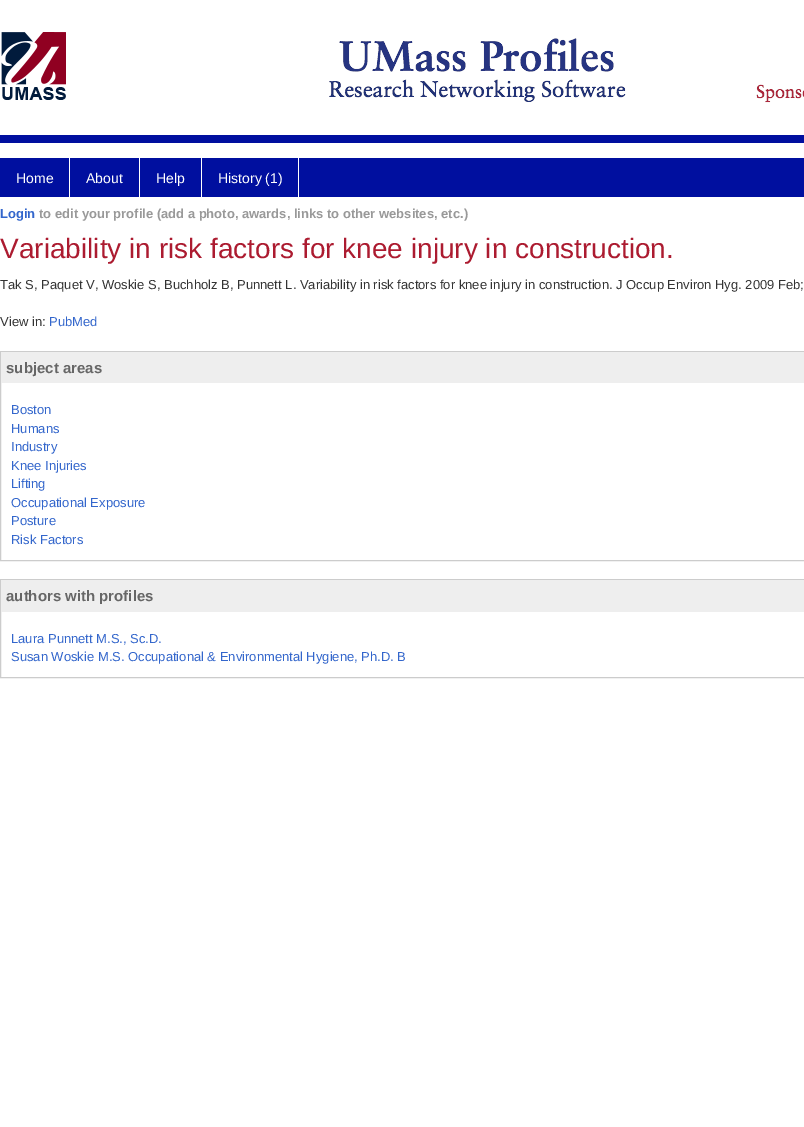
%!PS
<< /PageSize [804 1127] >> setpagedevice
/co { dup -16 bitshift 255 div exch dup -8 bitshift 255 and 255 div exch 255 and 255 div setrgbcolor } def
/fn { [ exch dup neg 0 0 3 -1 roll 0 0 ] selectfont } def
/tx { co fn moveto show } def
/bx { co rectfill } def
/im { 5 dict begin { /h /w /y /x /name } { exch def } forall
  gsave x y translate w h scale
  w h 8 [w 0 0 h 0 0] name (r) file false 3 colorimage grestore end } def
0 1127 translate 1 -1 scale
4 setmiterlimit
0 0 804 1127 16#FFFFFF bx
0 135 804 8 16#000F9F bx
(media/1.raw) 1 32 803 71 im
0 158 804 39 16#000F9F bx
69 158 1 39 16#FFFFFF bx
139 158 1 39 16#FFFFFF bx
201 158 1 39 16#FFFFFF bx
298 158 1 39 16#FFFFFF bx
16#CCCCCC co
.5 351.5 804 209 rectstroke
1 352 803 31 16#EEEEEE bx
16#CCCCCC co
.5 579.5 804 98 rectstroke
1 580 803 32 16#EEEEEE bx
(Home) 16 183 /LiberationSans-Regular 14 16#FFFFFF tx
(About) 86 183 /LiberationSans-Regular 14 16#FFFFFF tx
(Help) 156 183 /LiberationSans-Regular 14 16#FFFFFF tx
(History \(1\)) 218 183 /LiberationSans-Regular 14 16#FFFFFF tx
(Login) 0 218 /LiberationSans-Bold 13 16#3366CC tx
(to edit your profile \(add a photo, awards, links to other websites, etc.\)) 39 218 /LiberationSans-Bold 13 16#999999 tx
(Variability in risk factors for knee injury in construction.) 0 258 /LiberationSans-Regular 28 16#AC1B30 tx
(Tak S, Paquet V, Woskie S, Buchholz B, Punnett L. Variability in risk factors for knee injury in construction. J Occup Environ Hyg. 2009 Feb;) 0 289 /LiberationSans-Regular 13 16#333333 tx
(View in:) 0 326 /LiberationSans-Regular 13 16#333333 tx
(PubMed) 49 326 /LiberationSans-Regular 13 16#3366CC tx
(subject areas) 6 373 /LiberationSans-Bold 15 16#666666 tx
(Boston) 11 414 /LiberationSans-Regular 13 16#3366CC tx
(Humans) 11 433 /LiberationSans-Regular 13 16#3366CC tx
(Industry) 11 451 /LiberationSans-Regular 13 16#3366CC tx
(Knee Injuries) 11 470 /LiberationSans-Regular 13 16#3366CC tx
(Lifting) 11 488 /LiberationSans-Regular 13 16#3366CC tx
(Occupational Exposure) 11 507 /LiberationSans-Regular 13 16#3366CC tx
(Posture) 11 525 /LiberationSans-Regular 13 16#3366CC tx
(Risk Factors) 11 544 /LiberationSans-Regular 13 16#3366CC tx
(authors with profiles) 6 601 /LiberationSans-Bold 15 16#666666 tx
(Laura Punnett M.S., Sc.D.) 11 643 /LiberationSans-Regular 13 16#3366CC tx
(Susan Woskie M.S. Occupational & Environmental Hygiene, Ph.D. B) 11 661 /LiberationSans-Regular 13 16#3366CC tx
showpage
